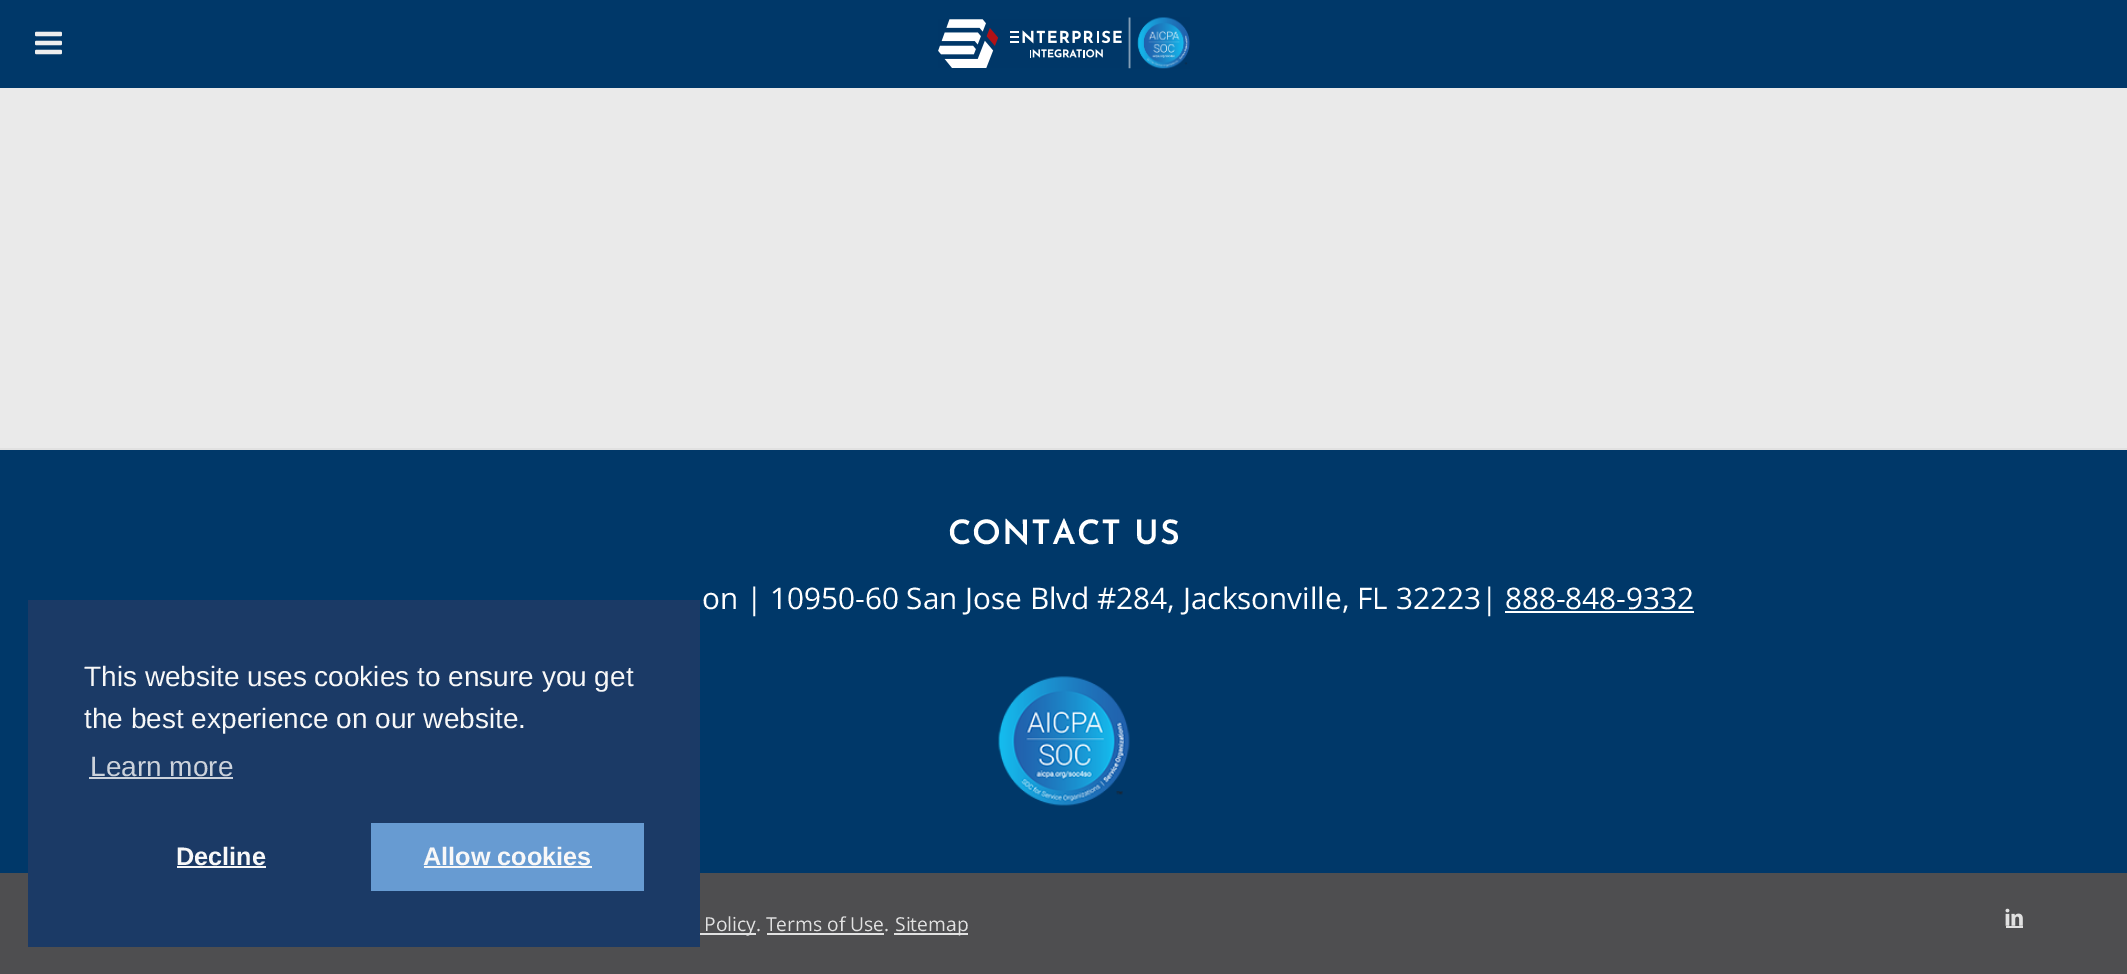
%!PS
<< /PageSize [2127 974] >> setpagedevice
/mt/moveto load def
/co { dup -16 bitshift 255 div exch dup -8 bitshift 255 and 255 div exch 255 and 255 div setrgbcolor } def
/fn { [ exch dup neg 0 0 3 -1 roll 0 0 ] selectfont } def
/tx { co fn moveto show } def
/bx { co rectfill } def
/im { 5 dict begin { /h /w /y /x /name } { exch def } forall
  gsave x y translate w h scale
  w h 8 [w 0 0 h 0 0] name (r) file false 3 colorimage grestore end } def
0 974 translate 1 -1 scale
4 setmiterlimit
0 0 2127 974 16#003869 bx
(media/1.raw) 35 31 27 24 im
(media/2.raw) 938 19 184 49 im
(media/3.raw) 1128 17 62 52 im
0 873 2127 101 16#4E4E50 bx
28 600 672 347 16#1B3A66 bx
89 777 144 2 16#CCD2DB bx
177 866 89 2 16#F8F8F8 bx
371 823 273 68 16#679BD2 bx
424 866 168 2 16#F8F8F8 bx
0 88 2127 360 16#EAEAEA bx
0 448 2127 2 16#E1E1E1 bx
1505 611 189 2 16#FFFFFF bx
(media/4.raw) 998 676 132 130 im
700 933 56 2 16#E1E1E1 bx
894 933 74 2 16#E1E1E1 bx
767 933 117 2 16#E1E1E1 bx
(media/5.raw) 2005 908 18 18 im
2006 926 17 2 16#E1E1E1 bx
(This website uses cookies to ensure you get) 84 686 /LiberationSans-Regular 28 16#F8F8F8 tx
(the best experience on our website.) 84 728 /LiberationSans-Regular 28 16#F8F8F8 tx
(Learn more) 90 776 /LiberationSans-Regular 28 16#CCD2DB tx
(Decline) 176 865 /LiberationSans-Bold 25.25 16#F8F8F8 tx
(Allow cookies) 423 865 /LiberationSans-Bold 25.25 16#F8F8F8 tx
/JosefinSans-Bold 32.75 fn
16#FFFFFF co
948 544 mt 1.75 0 (CONTACT US) ashow
(on | 10950-60 San Jose Blvd #284, Jacksonville, FL 32223| 888-848-9332) 702 609 /OpenSans-Regular 29.75 16#FFFFFF tx
(Policy. Terms of Use.) 704 931 /OpenSans-Regular 19.25 16#E1E1E1 tx
(Sitemap) 895 931 /OpenSans-Regular 19.25 16#E1E1E1 tx
showpage
